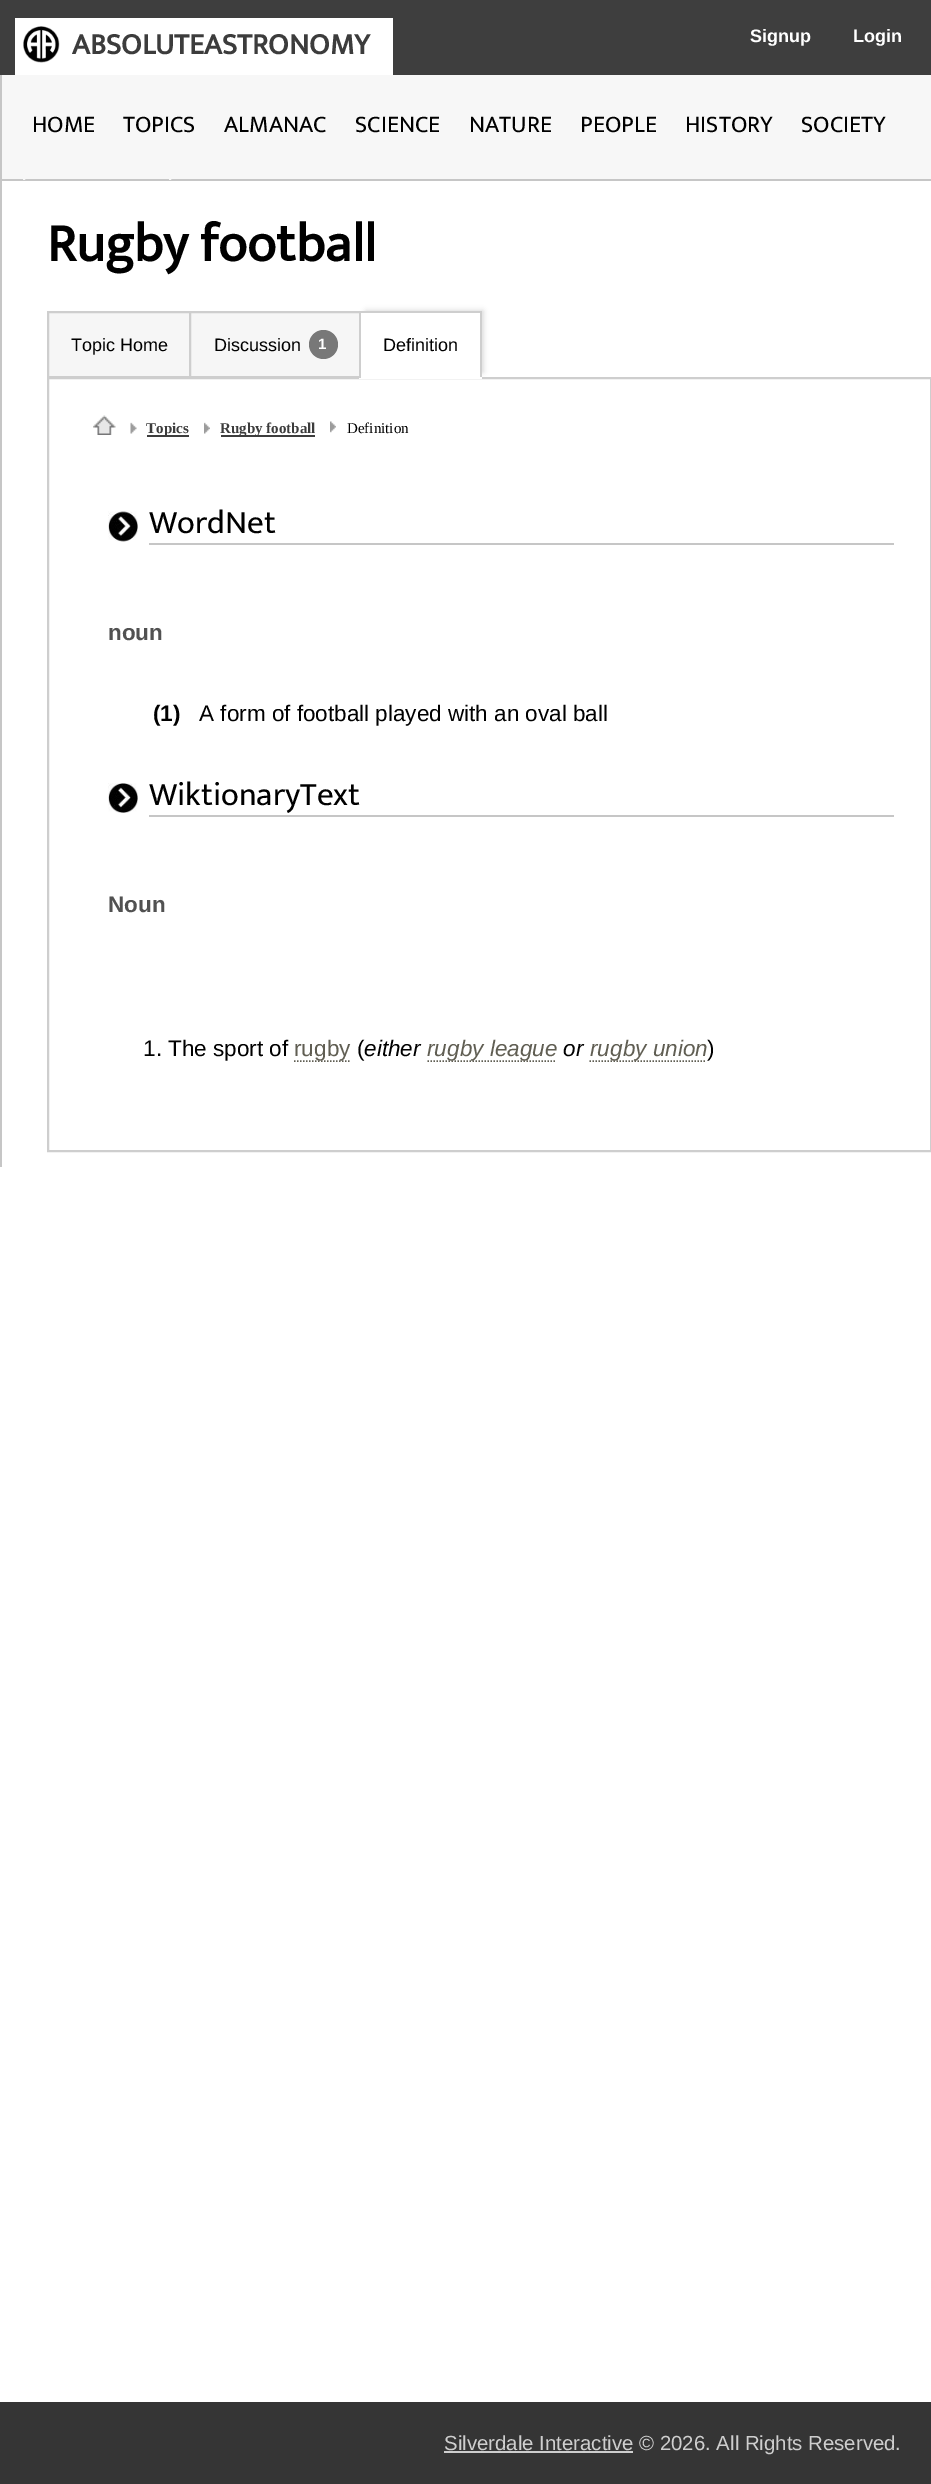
%!PS
<< /PageSize [931 2484] /PageUsesTransparency true >> setpagedevice
/mt/moveto load def
/li/lineto load def
/fl/fill load def
/st/stroke load def
/gs/gsave load def
/gr/grestore load def
/lw/setlinewidth load def
/co { dup -16 bitshift 255 div exch dup -8 bitshift 255 and 255 div exch 255 and 255 div setrgbcolor } def
/fn { [ exch dup neg 0 0 3 -1 roll 0 0 ] selectfont } def
/tx { co fn moveto show } def
/bx { co rectfill } def
/al { dup .setfillconstantalpha .setstrokeconstantalpha } def
/ci { newpath 0 360 arc closepath } def
/rr { 5 dict begin { /r /h /w /y /x } { exch def } forall
  x r add y moveto x w add y 2 copy h add r arct x w add y h add x 1 index r arct
  x y h add x y r arct x y 2 copy exch w add exch r arct closepath end } def
/sh { 12 dict begin { /a /b /q /h /w /y /x } { exch def } forall gsave /was 0 def
  9 -2 -9 { dup b mul 4 div /e exch def 1 sub .425 mul 2.718 exch exp 1 add a .99 .min exch div /now exch def
    1 1 now sub 1 was sub div sub al /was now def
    w h .min e 2 mul add 0 gt { x e sub y e sub w e 2 mul add h e 2 mul add
      q e add b .6 mul add w h .min 2 div e add .min 0 .max rr fill } if } for grestore end } def
/im { 5 dict begin { /h /w /y /x /name } { exch def } forall
  gsave x y translate w h scale
  w h 8 [w 0 0 h 0 0] name (r) file false 3 colorimage grestore end } def
0 .pushpdf14devicefilter
0 2484 translate 1 -1 scale
4 setmiterlimit
0 0 931 2484 16#FFFFFF bx
0 0 931 75 16#3E3E3E bx
15 18 378 57 16#FFFFFF bx
(media/1.raw) 23 26 37 37 im
2 75 929 104 16#F7F7F7 bx
0 179 931 2 16#C6C6C6 bx
gs
2 75 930 105 rectclip
16#F7F7F7 co
2 lw
24 159 146 61 rectstroke
gr
0 75 2 1092 16#C6C6C6 bx
49 313 140 63 16#F6F6F6 bx
16#CECECE co
2 lw
48 378 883 773 rectstroke
48 312 143 65 rectstroke
191 313 168 63 16#F6F6F6 bx
16#CECECE co
190 312 171 65 rectstroke
16#787878 co
323.5 344.5 14.5 ci fl
16#D1D1D1 co
366 311 117 61 0 3 1 sh
361 313 119 64 16#FFFFFF bx
359 311 123 2 16#CECECE bx
480 311 2 67 16#CECECE bx
359 377 123 2 16#FFFFFF bx
359 311 2 67 16#CECECE bx
(media/2.raw) 93 415 23 20 im
(media/3.raw) 130 422 7 12 im
147 435 42 2 16#3D3D3D bx
(media/4.raw) 204 422 6 12 im
221 435 94 2 16#3D3D3D bx
(media/5.raw) 330 421 6 12 im
(media/6.raw) 108 511 30 31 im
149 543 745 2 16#C6C6C6 bx
(media/7.raw) 108 783 30 30 im
149 815 745 2 16#C6C6C6 bx
16#605E53 co
1.5 lw
[1.5 1.5] 0 setdash
294 1061 mt 351 1061 li st
427.5 1061 mt 556.5 1061 li st
589.5 1061 mt 706.5 1061 li st
0 2402 931 82 16#353535 bx
444 2451 189 2 16#CECECE bx
(ABSOLUTEASTRONOMY) 72 54 /Mukta-Bold 30 16#3C3C3C tx
(Signup) 750 42 /LiberationSans-Bold 18 16#FFFFFF tx
(Login) 853 42 /LiberationSans-Bold 18 16#FFFFFF tx
(HOME) 32 132 /Mukta-Regular 24 16#000000 tx
(TOPICS) 123 132 /Mukta-Regular 24 16#000000 tx
(ALMANAC) 224 132 /Mukta-Regular 24 16#000000 tx
(SCIENCE) 355 132 /Mukta-Regular 24 16#000000 tx
(NATURE) 469 132 /Mukta-Regular 24 16#000000 tx
(PEOPLE) 580 132 /Mukta-Regular 24 16#000000 tx
(HISTORY) 685 132 /Mukta-Regular 24 16#000000 tx
(SOCIETY) 801 132 /Mukta-Regular 24 16#000000 tx
(Rugby football) 47 261 /Mukta-Bold 54 16#000000 tx
(Topic Home) 71 351 /LiberationSans-Regular 18 16#000000 tx
(Discussion) 214 351 /LiberationSans-Regular 18 16#000000 tx
(1) 318 349 /LiberationSans-Bold 15 16#FFFFFF tx
(Definition) 383 351 /LiberationSans-Regular 18 16#000000 tx
(Topics) 146 433 /LiberationSerif-Bold 15 16#3C3C3C tx
(Rugby football) 220 433 /LiberationSerif-Bold 15 16#3C3C3C tx
(Definition) 347 433 /LiberationSerif-Regular 15 16#000000 tx
(WordNet) 149 533 /Mukta-Regular 33 16#000000 tx
(noun) 108 640 /LiberationSans-Bold 22.5 16#515151 tx
(\(1\)) 153 721 /LiberationSans-Bold 22.5 16#000000 tx
(A form of football played with an oval ball) 199 721 /LiberationSans-Regular 22.5 16#000000 tx
(WiktionaryText) 149 805 /Mukta-Regular 33 16#000000 tx
(Noun) 108 912 /LiberationSans-Bold 22.5 16#515151 tx
(1. The sport of) 143 1056 /LiberationSans-Regular 22.5 16#000000 tx
(rugby) 294 1056 /LiberationSans-Regular 22.5 16#605E53 tx
(\() 357 1056 /LiberationSans-Regular 22.5 16#000000 tx
(either) 364 1056 /LiberationSans-Italic 22.5 16#000000 tx
(rugby league) 427 1056 /LiberationSans-Italic 22.5 16#605E53 tx
(or) 563 1056 /LiberationSans-Italic 22.5 16#000000 tx
(rugby union) 590 1056 /LiberationSans-Italic 22.5 16#605E53 tx
(\)) 707 1056 /LiberationSans-Regular 22.5 16#000000 tx
(Silverdale Interactive © 2026. All Rights Reserved.) 444 2450 /LiberationSans-Regular 20.4 16#CECECE tx
.poppdf14devicefilter showpage
